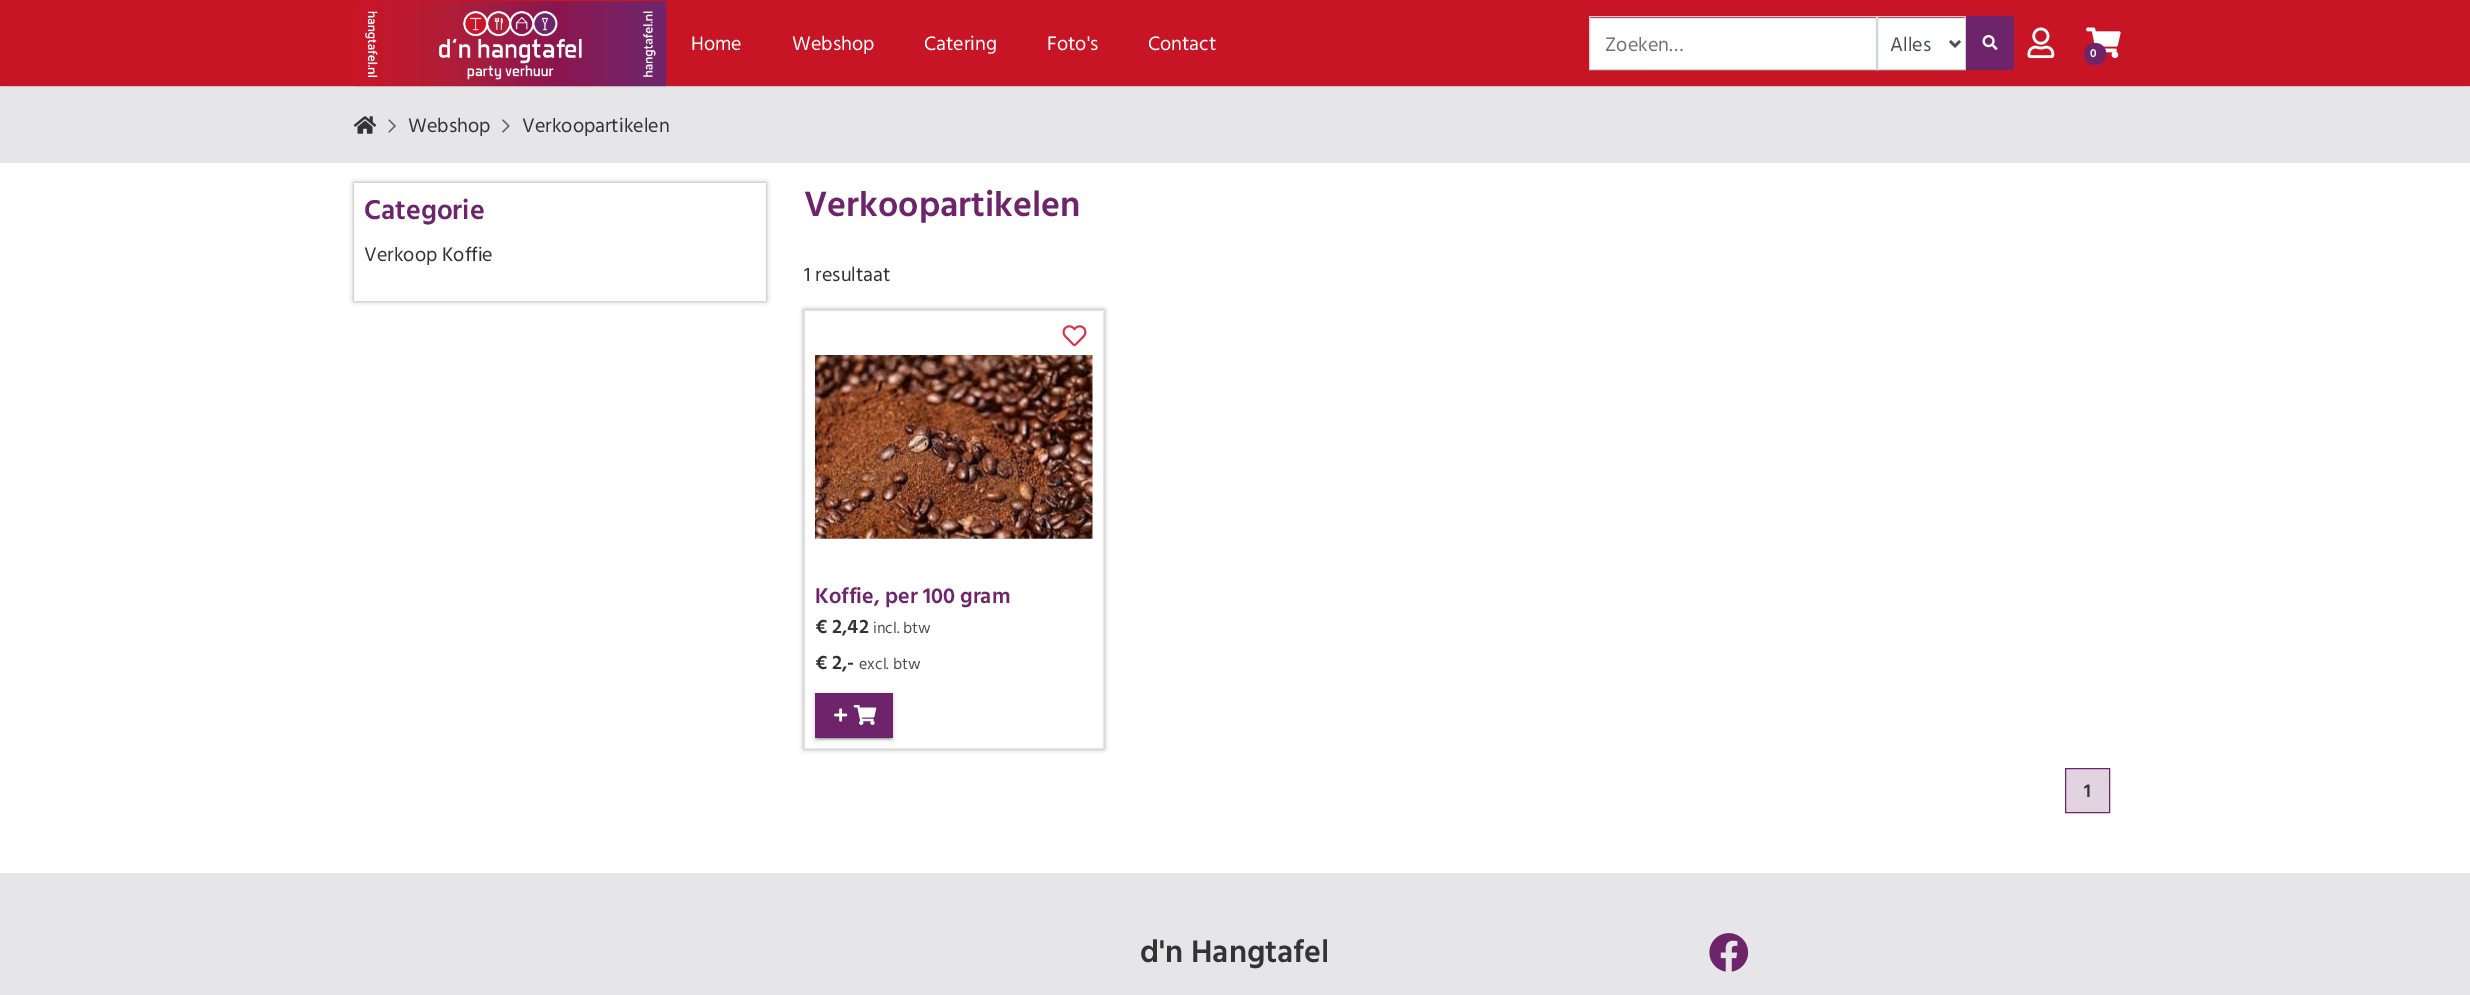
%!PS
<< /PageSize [2470 995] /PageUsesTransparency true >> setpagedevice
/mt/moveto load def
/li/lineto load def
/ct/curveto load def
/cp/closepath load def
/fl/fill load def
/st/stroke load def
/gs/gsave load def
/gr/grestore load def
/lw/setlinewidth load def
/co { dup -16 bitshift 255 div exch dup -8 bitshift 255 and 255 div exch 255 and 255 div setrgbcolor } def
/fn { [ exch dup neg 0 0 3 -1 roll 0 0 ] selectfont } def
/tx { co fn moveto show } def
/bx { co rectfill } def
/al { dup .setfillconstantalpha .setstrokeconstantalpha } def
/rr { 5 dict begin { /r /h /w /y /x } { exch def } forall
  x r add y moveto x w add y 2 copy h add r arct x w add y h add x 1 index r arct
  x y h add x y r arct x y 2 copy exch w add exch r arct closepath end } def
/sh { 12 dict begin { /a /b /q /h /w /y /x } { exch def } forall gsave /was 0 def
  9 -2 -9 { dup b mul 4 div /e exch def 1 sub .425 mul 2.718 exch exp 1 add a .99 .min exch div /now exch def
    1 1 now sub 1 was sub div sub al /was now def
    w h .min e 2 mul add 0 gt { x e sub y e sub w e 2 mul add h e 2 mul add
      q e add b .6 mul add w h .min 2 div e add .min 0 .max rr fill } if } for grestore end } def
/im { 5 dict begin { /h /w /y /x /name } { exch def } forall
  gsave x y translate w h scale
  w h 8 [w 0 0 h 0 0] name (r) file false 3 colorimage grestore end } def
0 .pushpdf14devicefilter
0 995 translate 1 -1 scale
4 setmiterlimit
0 0 2470 995 16#FFFFFF bx
0 86 2470 77 16#E6E6E8 bx
16#6C757D co
1 3 2468 83 0 .5 1 sh
0 0 2470 86 16#C81526 bx
(media/1.raw) 353 1 314 86 im
1590 19 286 50 16#FFFFFF bx
1590 18 286 1 16#ECECEC bx
1878 19 87 50 16#FFFFFF bx
1878 18 87 1 16#ECECEC bx
16#CED4DA co
1876.5 16.5 89 53 rectstroke
1589.5 16.5 288 53 rectstroke
16#495057 co
2.5 lw
1950 41 mt 1955 46 li 1960 41 li st
1966 16 48 54 16#6E246B bx
(media/2.raw) 1982 35 16 15 im
(media/3.raw) 2027 27 28 32 im
(media/4.raw) 2086 27 35 32 im
2095 43 mt 2080.5 43 2080.5 65 2095 65 ct 2110 65 2110 43 2095 43 ct cp fl
(media/5.raw) 353 116 24 18 im
(media/6.raw) 388 119 8 14 im
(media/7.raw) 502 119 8 14 im
gs
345 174 mt 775 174 li 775 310 li 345 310 li cp 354 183 mt 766 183 li 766 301 li 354 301 li cp eoclip newpath
16#888888 co
354 183 412 118 0 2.5 .8 sh
gr
16#888888 co
804 310 300 439 0 2.5 .8 sh
16#FFFFFF co
804.5 310.5 mt 1103.5 310.5 li 1103.5 748.5 li 804.5 748.5 li cp gs fl gr
16#E6E6E8 co
1 lw
st
(media/8.raw) 1062 325 25 22 im
16#000000 co
815 694 78 45 0 3 .12 sh
815 695 78 45 0 1 .14 sh
818 699 72 40 0 .5 .2 sh
815 693 78 45 16#6E246B bx
(media/9.raw) 834 708 14 14 im
(media/10.raw) 853 705 24 20 im
(media/11.raw) 815 355 278 184 im
16#E2D3E1 co
2065.5 768.5 mt 2109.5 768.5 li 2109.5 812.5 li 2065.5 812.5 li cp gs fl gr
16#6E246B co
st
0 873 2470 122 16#E6E6E8 bx
(media/12.raw) 1709 933 40 39 im
(Home) 691 50 /HindVadodara-Regular 20 16#FFFFFF tx
(Webshop) 792 50 /HindVadodara-Regular 20 16#FFFFFF tx
(Catering) 924 50 /HindVadodara-Regular 20 16#FFFFFF tx
(Foto's) 1047 50 /HindVadodara-Regular 20 16#FFFFFF tx
(Contact) 1148 50 /HindVadodara-Regular 20 16#FFFFFF tx
(Zoeken…) 1605 51 /HindVadodara-Regular 20 16#6C757D tx
(Alles) 1890 51 /HindVadodara-Regular 20 16#495057 tx
(0) 2090 57 /HindVadodara-SemiBold 12 16#FFFFFF tx
(Webshop) 408 132 /HindVadodara-Regular 20 16#333333 tx
(Verkoopartikelen) 522 132 /HindVadodara-Regular 20 16#333333 tx
(Categorie) 364 219 /HindVadodara-SemiBold 28 16#6E246B tx
(Verkoop Koffie) 364 261 /HindVadodara-Regular 20 16#333333 tx
(Verkoopartikelen) 804 216 /HindVadodara-SemiBold 36 16#6E246B tx
(1 resultaat) 804 281 /HindVadodara-Regular 20 16#333333 tx
(Koffie, per 100 gram) 815 603 /HindVadodara-SemiBold 22 16#6E246B tx
(€ 2,42) 815 633 /HindVadodara-SemiBold 20 16#333333 tx
(incl. btw) 873 633 /HindVadodara-Regular 16 16#4D4D4D tx
(€ 2,-) 815 669 /HindVadodara-SemiBold 20 16#333333 tx
(excl. btw) 859 669 /HindVadodara-Regular 16 16#4D4D4D tx
(1) 2084 797 /HindVadodara-SemiBold 19 16#333333 tx
(d'n Hangtafel) 1140 962 /HindVadodara-SemiBold 32 16#333333 tx
.poppdf14devicefilter showpage
